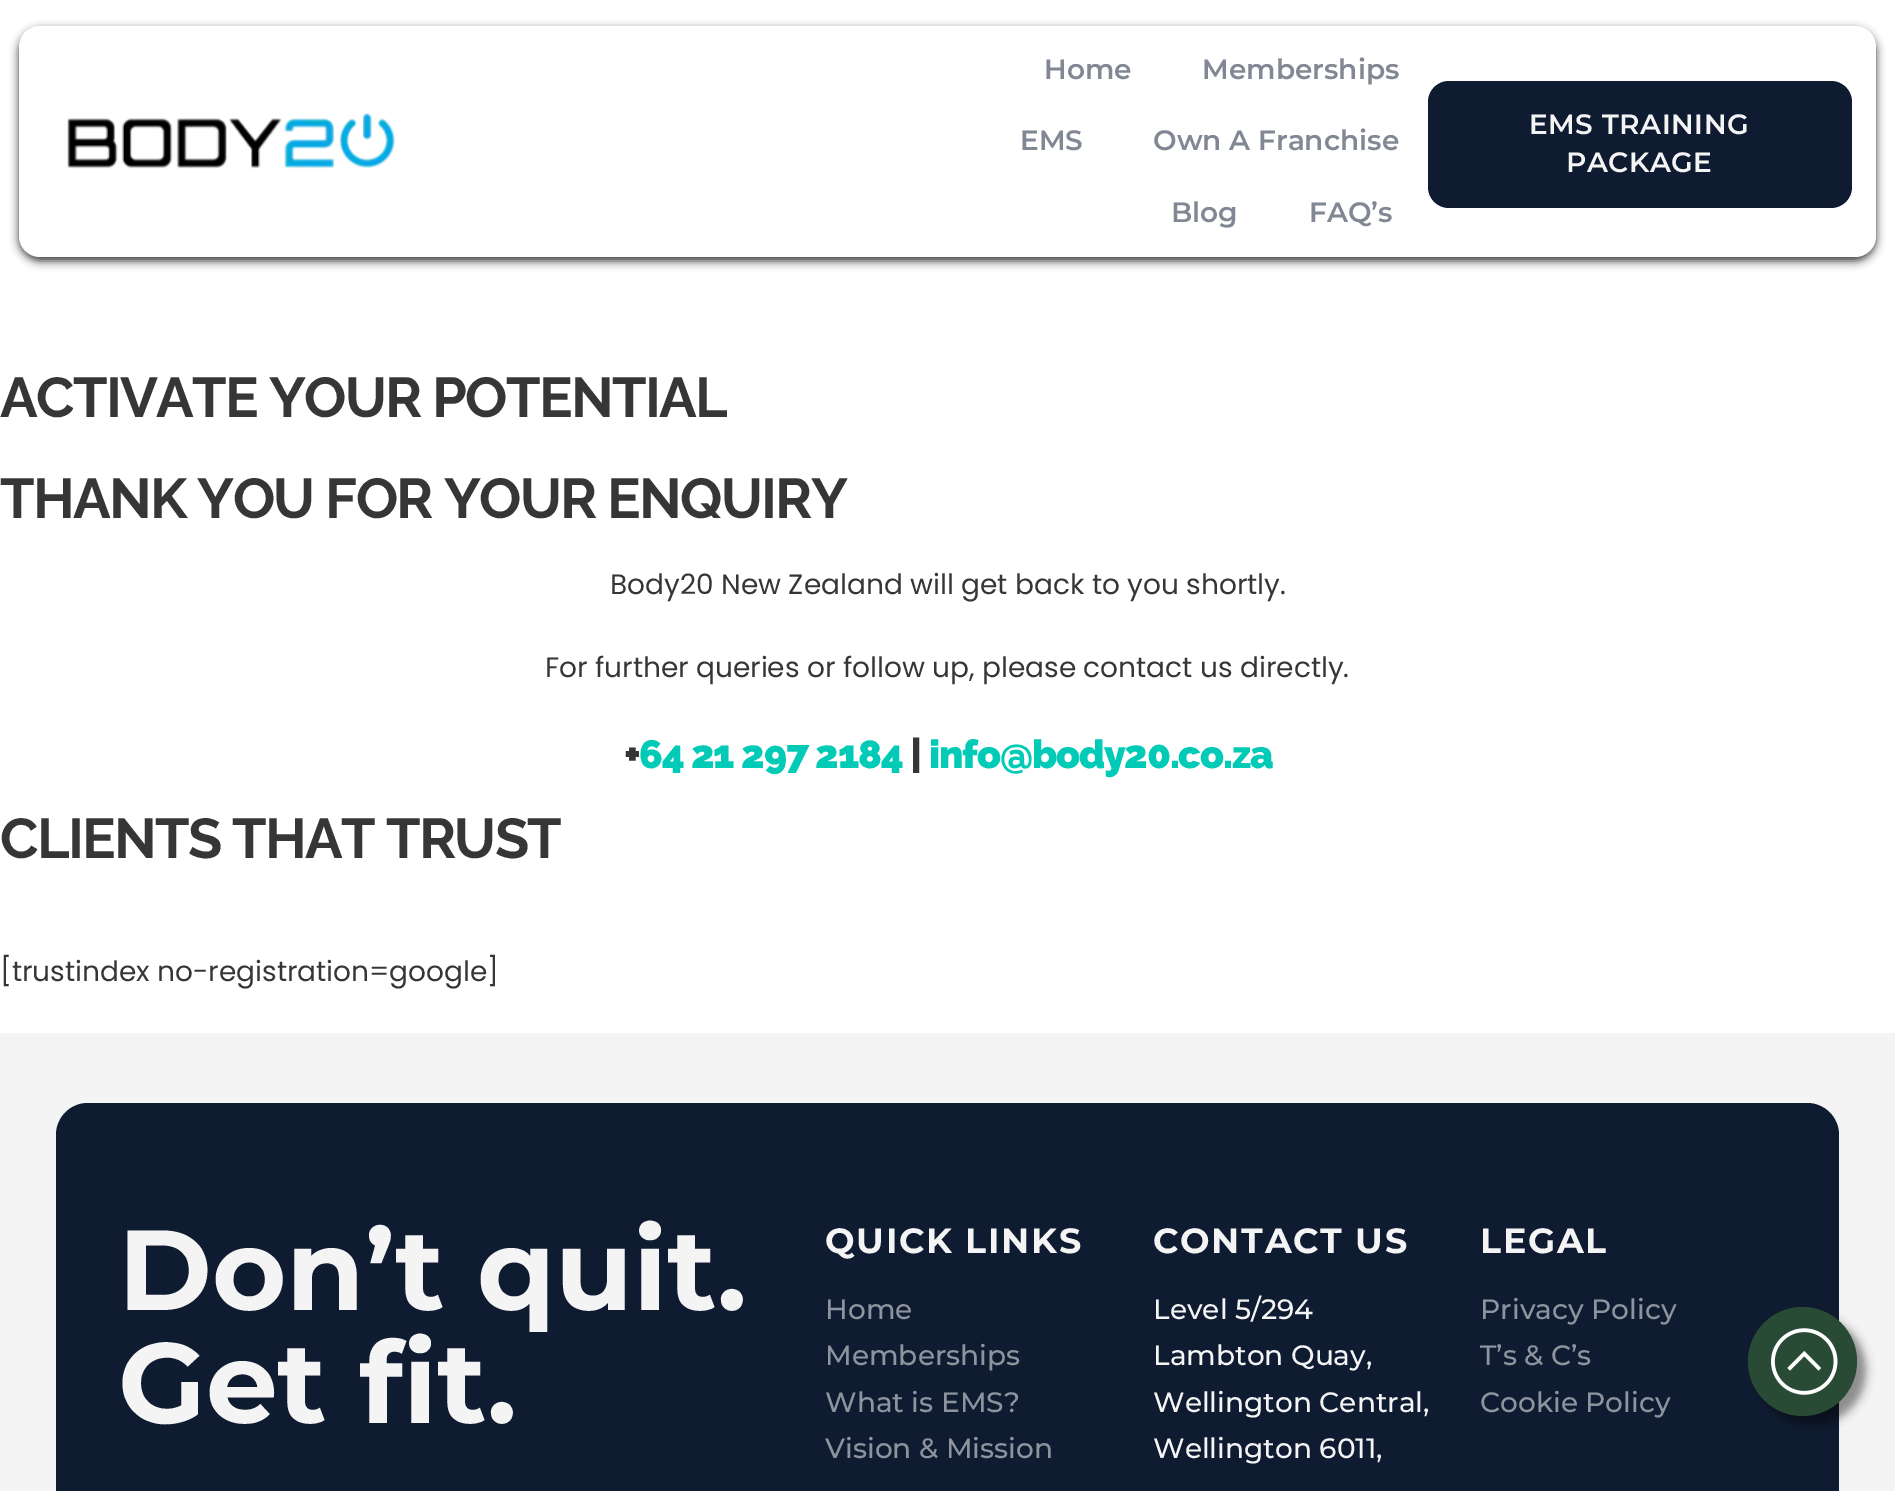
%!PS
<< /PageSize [1895 1491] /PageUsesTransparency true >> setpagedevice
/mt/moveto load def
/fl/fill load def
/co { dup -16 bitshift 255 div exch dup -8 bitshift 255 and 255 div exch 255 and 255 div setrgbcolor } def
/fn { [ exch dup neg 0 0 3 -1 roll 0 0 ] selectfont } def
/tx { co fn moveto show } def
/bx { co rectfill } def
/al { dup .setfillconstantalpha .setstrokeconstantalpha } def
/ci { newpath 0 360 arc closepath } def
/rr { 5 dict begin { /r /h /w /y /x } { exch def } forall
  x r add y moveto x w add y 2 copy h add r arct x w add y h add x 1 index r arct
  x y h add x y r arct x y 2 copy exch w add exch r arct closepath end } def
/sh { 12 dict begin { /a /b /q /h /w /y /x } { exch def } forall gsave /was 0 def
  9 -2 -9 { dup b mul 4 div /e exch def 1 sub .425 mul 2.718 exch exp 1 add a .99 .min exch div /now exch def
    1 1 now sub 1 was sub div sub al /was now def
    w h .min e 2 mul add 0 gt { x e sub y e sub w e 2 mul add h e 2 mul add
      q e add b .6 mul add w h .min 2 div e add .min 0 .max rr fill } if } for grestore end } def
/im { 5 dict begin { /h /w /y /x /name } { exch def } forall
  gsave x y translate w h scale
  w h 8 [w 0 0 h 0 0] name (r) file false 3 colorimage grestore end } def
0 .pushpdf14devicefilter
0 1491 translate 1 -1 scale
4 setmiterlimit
0 0 1895 1491 16#FFFFFF bx
16#363636 co
19 30 1857 231 21 4.5 1 sh
16#FFFFFF co
19 26 1857 231 21 rr fl
(media/1.raw) 67 113 329 56 im
16#0E1B31 co
1428 81 424 127 21 rr fl
0 1033 1895 458 16#F4F4F4 bx
16#0E1B31 co
56 1103 1783 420 32 rr fl
16#000000 co
1757 1316 109 109 54.5 4.5 .43 sh
16#294B36 co
1802.5 1361.5 54.5 ci fl
(media/2.raw) 1771 1328 67 67 im
(Home) 1044 79 /Montserrat-SemiBold 28 16#818793 tx
(Memberships) 1202 79 /Montserrat-SemiBold 28 16#818793 tx
(EMS) 1020 150 /Montserrat-SemiBold 28 16#818793 tx
(Own A Franchise) 1153 150 /Montserrat-SemiBold 28 16#818793 tx
(Blog) 1171 222 /Montserrat-SemiBold 28 16#818793 tx
(FAQ’s) 1309 222 /Montserrat-SemiBold 28 16#818793 tx
16#F4F4F4 co
1529 134 mt .5 0 (EMS TRAINING) ashow
1566 172 mt .5 0 (PACKAGE) ashow
/Raleway-Bold 56 fn
16#363636 co
0 417 mt -1.7 0 (ACTIVATE YOUR POTENTIAL) ashow
0 518 mt -1.7 0 (THANK YOU FOR YOUR ENQUIRY) ashow
(Body20 New Zealand will get back to you shortly.) 610 594 /Poppins-Regular 28 16#363636 tx
(For further queries or follow up, please contact us directly.) 545 677 /Poppins-Regular 28 16#363636 tx
/Raleway-Black 39.25 fn
624 768 mt -1.2 0 (+) ashow
16#01CAB6 co
639 768 mt -1.2 0 (64 21 297 2184) ashow
16#363636 co
910 768 mt -1.2 0 (|) ashow
16#01CAB6 co
929 768 mt -1.2 0 (info@body20.co.za) ashow
/Raleway-Bold 56 fn
16#363636 co
0 858 mt -1.7 0 (CLIENTS THAT TRUST) ashow
([trustindex no-registration=google]) 0 981 /Poppins-Regular 28 16#363636 tx
(Don’t quit.) 118 1310 /Montserrat-Bold 113.75 16#F4F4F4 tx
(Get fit.) 118 1423 /Montserrat-Bold 113.75 16#F4F4F4 tx
/Montserrat-Bold 35 fn
825 1253 mt 1.75 0 (QUICK LINKS) ashow
(Home) 825 1319 /Montserrat-Medium 28 16#8E949E tx
(Memberships) 825 1365 /Montserrat-Medium 28 16#8E949E tx
(What is EMS?) 825 1412 /Montserrat-Medium 28 16#8E949E tx
(Vision & Mission) 825 1458 /Montserrat-Medium 28 16#8E949E tx
/Montserrat-Bold 35 fn
16#F4F4F4 co
1153 1253 mt 1.75 0 (CONTACT US) ashow
(Level 5/294) 1153 1319 /Montserrat-Medium 28 16#F4F4F4 tx
(Lambton Quay,) 1153 1365 /Montserrat-Medium 28 16#F4F4F4 tx
(Wellington Central,) 1153 1412 /Montserrat-Medium 28 16#F4F4F4 tx
(Wellington 6011,) 1153 1458 /Montserrat-Medium 28 16#F4F4F4 tx
/Montserrat-Bold 35 fn
1480 1253 mt 1.75 0 (LEGAL) ashow
(Privacy Policy) 1480 1319 /Montserrat-Medium 28 16#8E949E tx
(T’s & C’s) 1480 1365 /Montserrat-Medium 28 16#8E949E tx
(Cookie Policy) 1480 1412 /Montserrat-Medium 28 16#8E949E tx
.poppdf14devicefilter showpage
